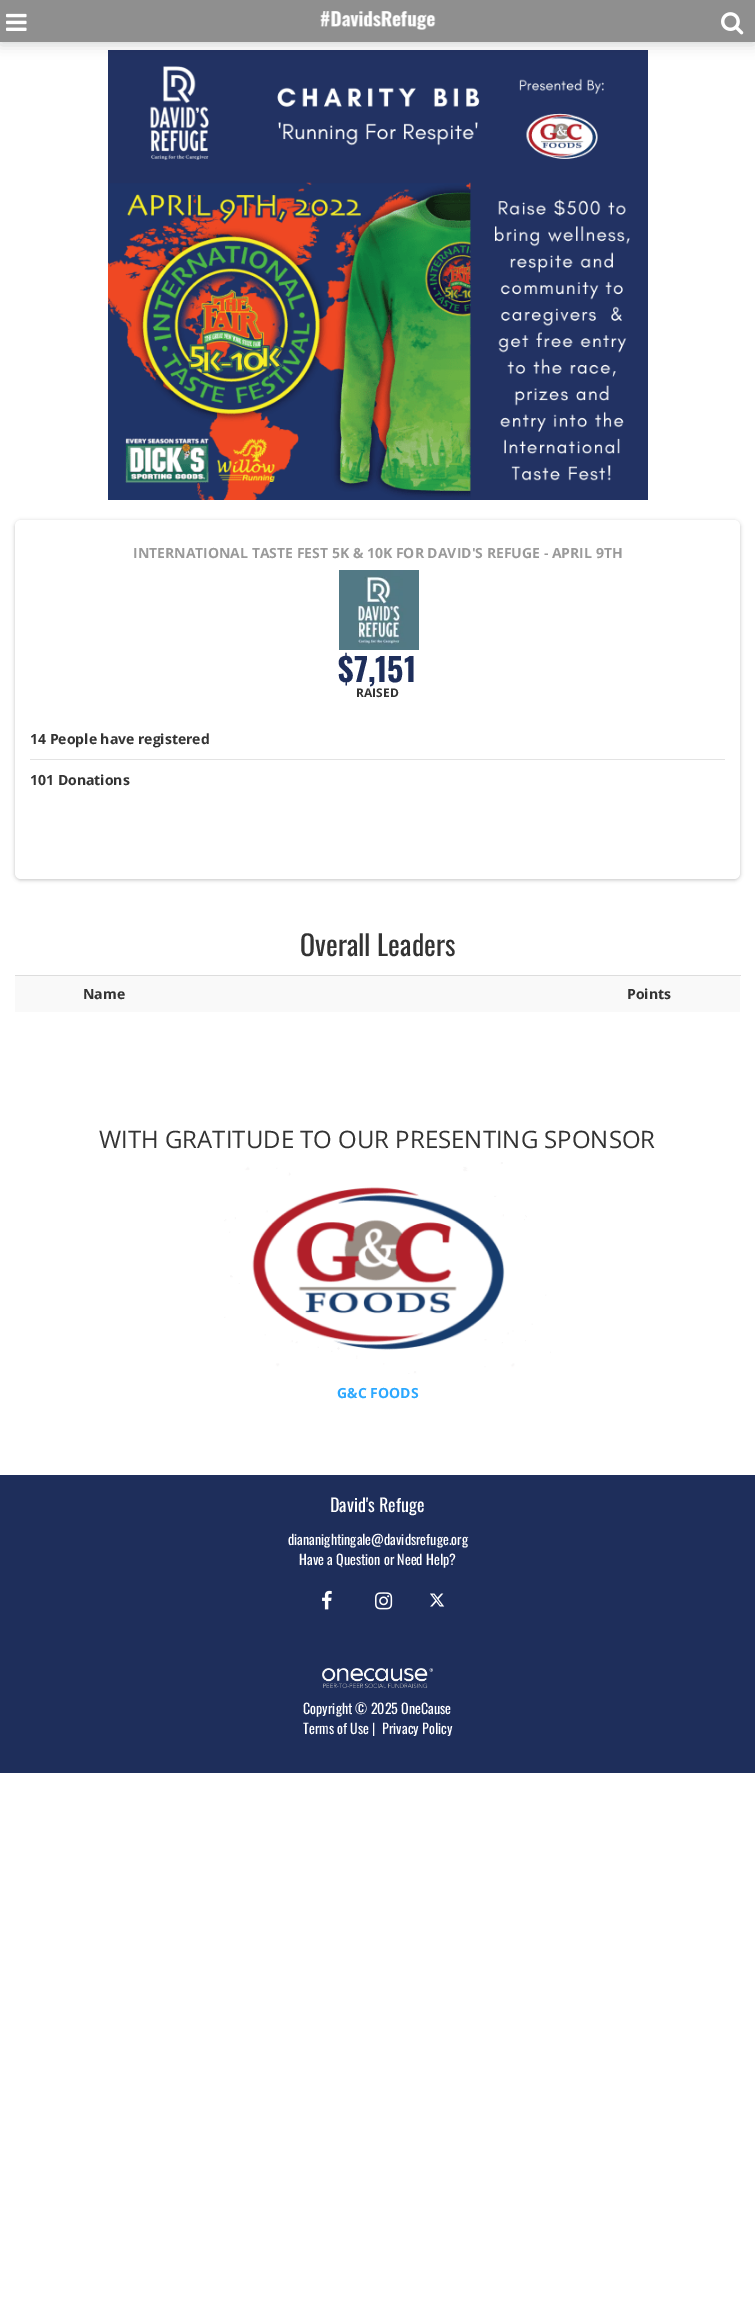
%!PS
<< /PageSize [755 2316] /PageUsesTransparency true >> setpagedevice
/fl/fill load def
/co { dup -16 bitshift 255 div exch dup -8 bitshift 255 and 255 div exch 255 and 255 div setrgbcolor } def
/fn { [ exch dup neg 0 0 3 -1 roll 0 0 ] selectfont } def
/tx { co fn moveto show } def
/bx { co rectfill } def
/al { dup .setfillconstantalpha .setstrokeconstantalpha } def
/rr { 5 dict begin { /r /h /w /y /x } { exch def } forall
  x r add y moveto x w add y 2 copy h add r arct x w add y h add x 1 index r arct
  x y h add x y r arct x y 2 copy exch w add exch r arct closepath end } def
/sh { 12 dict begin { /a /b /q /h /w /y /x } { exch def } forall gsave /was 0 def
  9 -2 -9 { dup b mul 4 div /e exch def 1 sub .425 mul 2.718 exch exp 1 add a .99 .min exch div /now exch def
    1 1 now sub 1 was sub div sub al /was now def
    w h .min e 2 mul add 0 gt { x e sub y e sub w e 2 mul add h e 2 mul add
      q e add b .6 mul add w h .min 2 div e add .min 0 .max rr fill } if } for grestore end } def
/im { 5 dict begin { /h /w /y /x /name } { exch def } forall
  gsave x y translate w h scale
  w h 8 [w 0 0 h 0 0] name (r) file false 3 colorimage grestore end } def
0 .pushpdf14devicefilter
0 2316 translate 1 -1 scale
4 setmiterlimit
0 0 755 2316 16#FFFFFF bx
(media/4.raw) 108 50 540 450 im
16#020303 co
0 3 755 42 0 6.5 .16 sh
0 0 755 42 16#8F8F8F bx
(media/1.raw) 6 13 21 18 im
(media/2.raw) 320 11 116 19 im
(media/3.raw) 721 12 23 23 im
16#000000 co
15 521 725 359 6 2 .23 sh
16#FFFFFF co
15 520 725 359 6 rr fl
(media/5.raw) 339 570 80 80 im
30 759 695 1 16#E3E3E3 bx
15 976 725 36 16#F9F9F9 bx
15 975 726 1 16#DDDDDD bx
(media/6.raw) 224 1162 327 212 im
0 1475 755 298 16#1E2E5B bx
(media/7.raw) 322 1590 10 20 im
(media/8.raw) 375 1592 18 18 im
(media/9.raw) 430 1593 15 14 im
(media/10.raw) 322 1668 111 20 im
(INTERNATIONAL TASTE FEST 5K & 10K FOR DAVID'S REFUGE - APRIL 9TH) 133 558 /OpenSans-Bold 14 16#9A9A9A tx
($7,151) 338 682 /Oswald-Bold 32 16#1E2E5B tx
(RAISED) 356 697 /OpenSans-Bold 12 16#333333 tx
(14 People have registered) 30 744 /OpenSans-Bold 14 16#333333 tx
(101 Donations) 30 785 /OpenSans-Bold 14 16#333333 tx
(Overall Leaders) 300 956 /Oswald-Regular 28 16#333333 tx
(Name) 83 999 /OpenSans-Bold 14 16#333333 tx
(Points) 627 999 /OpenSans-Bold 14 16#333333 tx
(WITH GRATITUDE TO OUR PRESENTING SPONSOR) 99 1148 /OpenSans-Regular 24 16#333333 tx
(G&C FOODS) 337 1398 /OpenSans-Bold 14 16#2CA8FF tx
(David's Refuge) 330 1512 /Oswald-Regular 18 16#FFFFFF tx
(diananightingale@davidsrefuge.org) 288 1545 /Oswald-Regular 14 16#FFFFFF tx
(Have a Question or Need Help?) 299 1565 /Oswald-Regular 14 16#FFFFFF tx
(Copyright © 2025 OneCause) 303 1714 /Oswald-Regular 14 16#FFFFFF tx
(Terms of Use |) 303 1734 /Oswald-Regular 14 16#FFFFFF tx
(Privacy Policy) 382 1734 /Oswald-Regular 14 16#FFFFFF tx
.poppdf14devicefilter showpage
